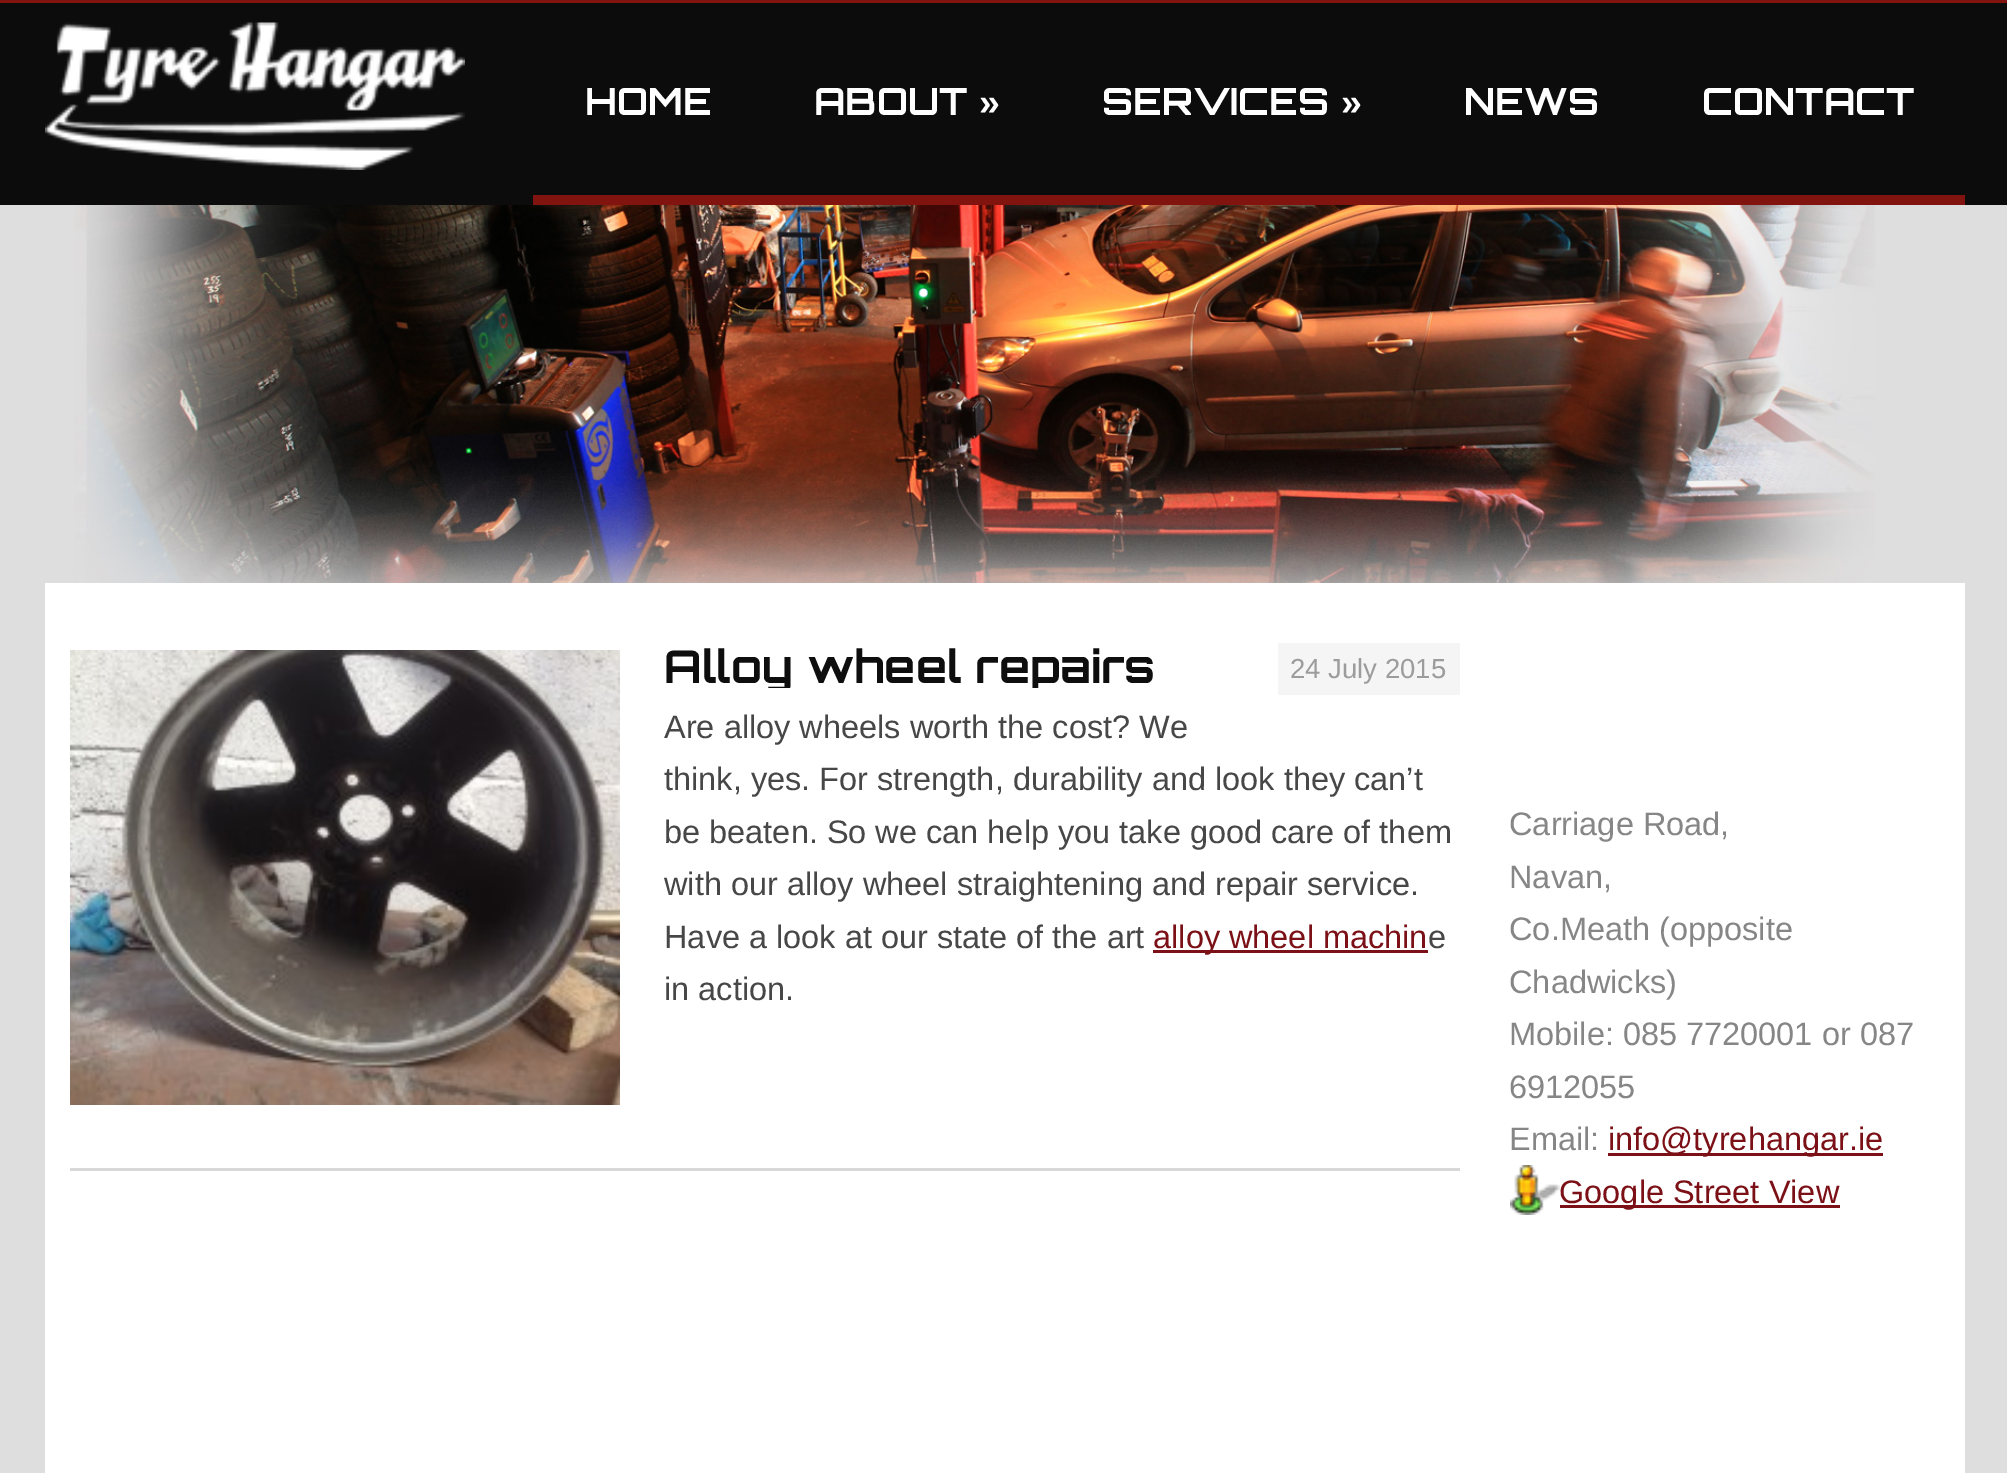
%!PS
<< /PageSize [2007 1473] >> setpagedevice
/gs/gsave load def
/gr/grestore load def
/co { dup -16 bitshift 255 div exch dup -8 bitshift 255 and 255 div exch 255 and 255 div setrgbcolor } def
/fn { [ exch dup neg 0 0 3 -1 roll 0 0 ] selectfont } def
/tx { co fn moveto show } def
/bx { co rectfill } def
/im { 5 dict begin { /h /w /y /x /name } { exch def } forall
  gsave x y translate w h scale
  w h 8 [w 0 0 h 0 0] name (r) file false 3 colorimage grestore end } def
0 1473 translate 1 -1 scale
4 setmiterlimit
0 0 2007 1473 16#DEDEDE bx
(media/1.raw) 74 205 1801 378 im
0 3 2007 202 16#0C0C0C bx
0 0 2007 3 16#81140F bx
(media/2.raw) 45 22 420 148 im
533 195 1432 10 16#81140F bx
45 583 1920 890 16#FFFFFF bx
70 1168 1390 3 16#D8D8D8 bx
(media/3.raw) 70 650 550 455 im
1153 950 275 3 16#7C1017 bx
1278 643 182 52 16#F5F5F5 bx
1608 1153 275 3 16#7C1017 bx
(media/4.raw) 1510 1165 50 50 im
1560 1205 280 3 16#7C1017 bx
(HOME) 585 115 /Orbitron-Bold 37.5 16#FFFFFF tx
(ABOUT) 814 115 /Orbitron-Bold 37.5 16#FFFFFF tx
(») 979 115 /LiberationSans-Bold 37.5 16#FFFFFF tx
(SERVICES) 1102 115 /Orbitron-Bold 37.5 16#FFFFFF tx
(») 1341 115 /LiberationSans-Bold 37.5 16#FFFFFF tx
(NEWS) 1464 115 /Orbitron-Bold 37.5 16#FFFFFF tx
(CONTACT) 1702 115 /Orbitron-Bold 37.5 16#FFFFFF tx
gs
665 643 588 45 rectclip
(Alloy wheel repairs) 664 683 /Orbitron-Bold 45 16#0E0E0E tx
gr
(Are alloy wheels worth the cost? We) 664 738 /LiberationSans-Regular 32.5 16#474747 tx
(think, yes. For strength, durability and look they can’t) 664 790 /LiberationSans-Regular 32.5 16#474747 tx
(be beaten. So we can help you take good care of them) 664 843 /LiberationSans-Regular 32.5 16#474747 tx
(with our alloy wheel straightening and repair service.) 664 895 /LiberationSans-Regular 32.5 16#474747 tx
(Have a look at our state of the art) 664 948 /LiberationSans-Regular 32.5 16#474747 tx
(alloy wheel machin) 1153 948 /LiberationSans-Regular 32.5 16#7C1017 tx
(e) 1428 948 /LiberationSans-Regular 32.5 16#474747 tx
(in action.) 664 1000 /LiberationSans-Regular 32.5 16#474747 tx
(24 July 2015) 1290 678 /LiberationSans-Regular 27.5 16#9C9C9C tx
(Carriage Road,) 1509 835 /LiberationSans-Regular 32.5 16#868686 tx
(Navan,) 1509 888 /LiberationSans-Regular 32.5 16#868686 tx
(Co.Meath \(opposite) 1509 940 /LiberationSans-Regular 32.5 16#868686 tx
(Chadwicks\)) 1509 993 /LiberationSans-Regular 32.5 16#868686 tx
(Mobile: 085 7720001 or 087) 1509 1045 /LiberationSans-Regular 32.5 16#868686 tx
(6912055) 1509 1098 /LiberationSans-Regular 32.5 16#868686 tx
(Email:) 1509 1150 /LiberationSans-Regular 32.5 16#868686 tx
(info@tyrehangar.ie) 1608 1150 /LiberationSans-Regular 32.5 16#7C1017 tx
(Google Street View) 1559 1203 /LiberationSans-Regular 32.5 16#7C1017 tx
showpage
